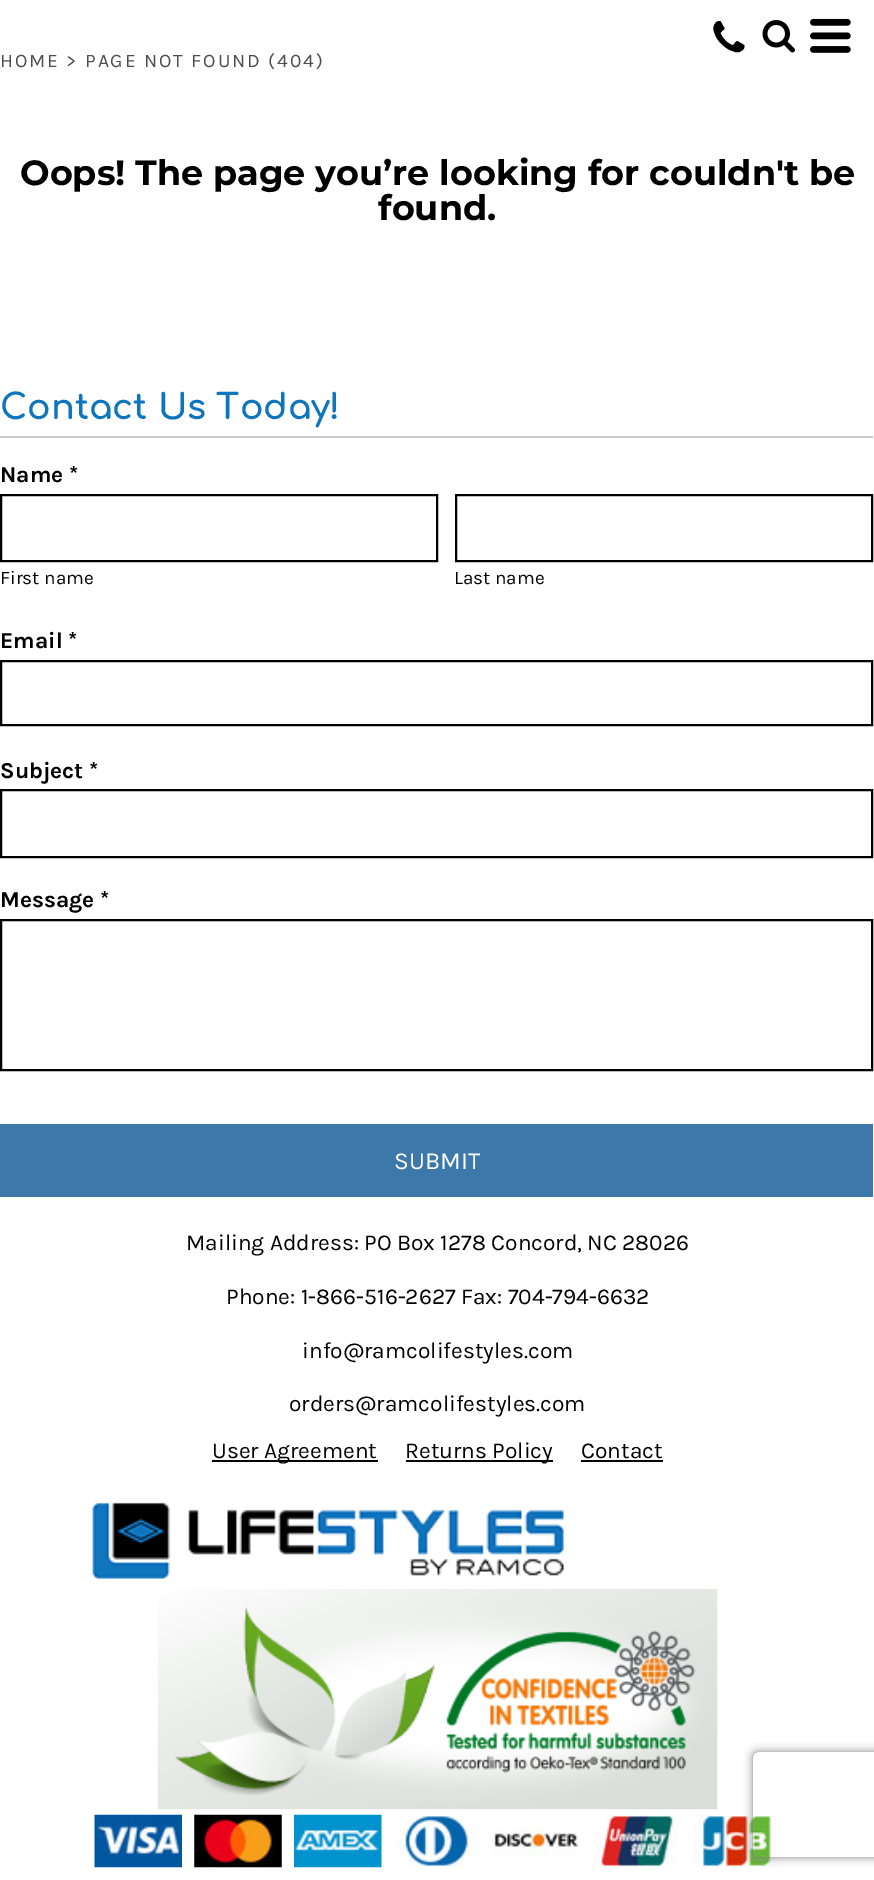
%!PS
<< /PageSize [874 1880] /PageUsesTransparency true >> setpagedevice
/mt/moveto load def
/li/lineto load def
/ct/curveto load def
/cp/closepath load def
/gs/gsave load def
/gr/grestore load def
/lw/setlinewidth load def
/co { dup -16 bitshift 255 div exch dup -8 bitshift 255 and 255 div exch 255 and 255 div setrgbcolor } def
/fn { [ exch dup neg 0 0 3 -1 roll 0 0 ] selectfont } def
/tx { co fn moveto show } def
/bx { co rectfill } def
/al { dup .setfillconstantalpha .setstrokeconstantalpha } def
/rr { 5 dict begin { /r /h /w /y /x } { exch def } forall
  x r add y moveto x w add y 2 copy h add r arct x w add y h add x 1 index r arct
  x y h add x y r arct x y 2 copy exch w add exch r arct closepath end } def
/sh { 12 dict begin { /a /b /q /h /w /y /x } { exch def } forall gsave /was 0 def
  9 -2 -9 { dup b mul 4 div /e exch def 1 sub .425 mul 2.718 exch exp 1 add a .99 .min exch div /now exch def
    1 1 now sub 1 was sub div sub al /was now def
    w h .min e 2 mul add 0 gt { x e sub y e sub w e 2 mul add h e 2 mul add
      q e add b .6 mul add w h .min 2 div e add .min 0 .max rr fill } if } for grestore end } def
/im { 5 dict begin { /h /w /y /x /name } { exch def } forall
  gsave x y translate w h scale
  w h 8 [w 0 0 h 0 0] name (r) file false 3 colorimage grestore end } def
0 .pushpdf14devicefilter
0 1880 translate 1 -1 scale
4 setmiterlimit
0 0 874 1880 16#FFFFFF bx
(media/1.raw) 762 20 33 33 im
(media/2.raw) 810 18 41 35 im
0 436 873 2 16#CCCCCC bx
16#000000 co
2 lw
1 495 436 66 rectstroke
456 495 416 66 rectstroke
1 661 871 64 rectstroke
1 790 871 67 rectstroke
1 920 871 150 rectstroke
0 1124 873 73 16#3C78AA bx
212 1460 166 2 16#000000 bx
406 1460 147 2 16#000000 bx
581 1460 82 2 16#000000 bx
(media/3.raw) 92 1502 472 77 im
(media/4.raw) 157 1589 561 221 im
(media/5.raw) 94 1814 88 54 im
(media/6.raw) 194 1814 88 54 im
(media/7.raw) 294 1814 88 54 im
(media/8.raw) 396 1815 82 52 im
(media/9.raw) 493 1828 85 29 im
(media/10.raw) 593 1814 85 54 im
(media/11.raw) 693 1814 85 54 im
gs
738 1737 mt 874 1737 li 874 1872 li 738 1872 li cp 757 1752 mt 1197 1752 li 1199 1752 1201 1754 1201 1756 ct 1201 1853 li 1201 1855 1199 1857 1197 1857 ct 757 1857 li 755 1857 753 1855 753 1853 ct 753 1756 li 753 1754 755 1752 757 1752 ct cp eoclip newpath
16#808080 co
753 1752 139 105 4 4.5 1 sh
gr
(;) 709 58 /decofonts-Regular 40 16#000000 tx
/Karla-Regular 19.25 fn
16#4D4D4D co
0 67 mt 1.9 0 (HOME > PAGE NOT FOUND \(404\)) ashow
(Oops! The page you’re looking for couldn't be) 20 185 /Montserrat-Bold 35 16#000000 tx
(found.) 378 220 /Montserrat-Bold 35 16#000000 tx
(Contact Us Today!) 0 419 /Comfortaa-Bold 35 16#0F75BC tx
(Name *) 0 482 /Karla-Bold 22.75 16#000000 tx
(First name) 0 584 /Karla-Regular 19 16#000000 tx
(Last name) 454 584 /Karla-Regular 19 16#000000 tx
(Email *) 0 648 /Karla-Bold 22.75 16#000000 tx
(Subject *) 0 778 /Karla-Bold 22.75 16#000000 tx
(Message *) 0 907 /Karla-Bold 22.75 16#000000 tx
(SUBMIT) 394 1169 /Karla-Regular 24.5 16#FFFFFF tx
(Mailing Address: PO Box 1278 Concord, NC 28026) 186 1250 /Karla-Regular 22.75 16#000000 tx
(Phone: 1-866-516-2627 Fax: 704-794-6632) 226 1304 /Karla-Regular 22.75 16#000000 tx
(info@ramcolifestyles.com) 302 1358 /Karla-Regular 22.75 16#000000 tx
(orders@ramcolifestyles.com) 289 1411 /Karla-Regular 22.75 16#000000 tx
(User Agreement) 212 1458 /Karla-Regular 22.75 16#000000 tx
(Returns Policy) 405 1458 /Karla-Regular 22.75 16#000000 tx
(Contact) 581 1458 /Karla-Regular 22.75 16#000000 tx
.poppdf14devicefilter showpage
